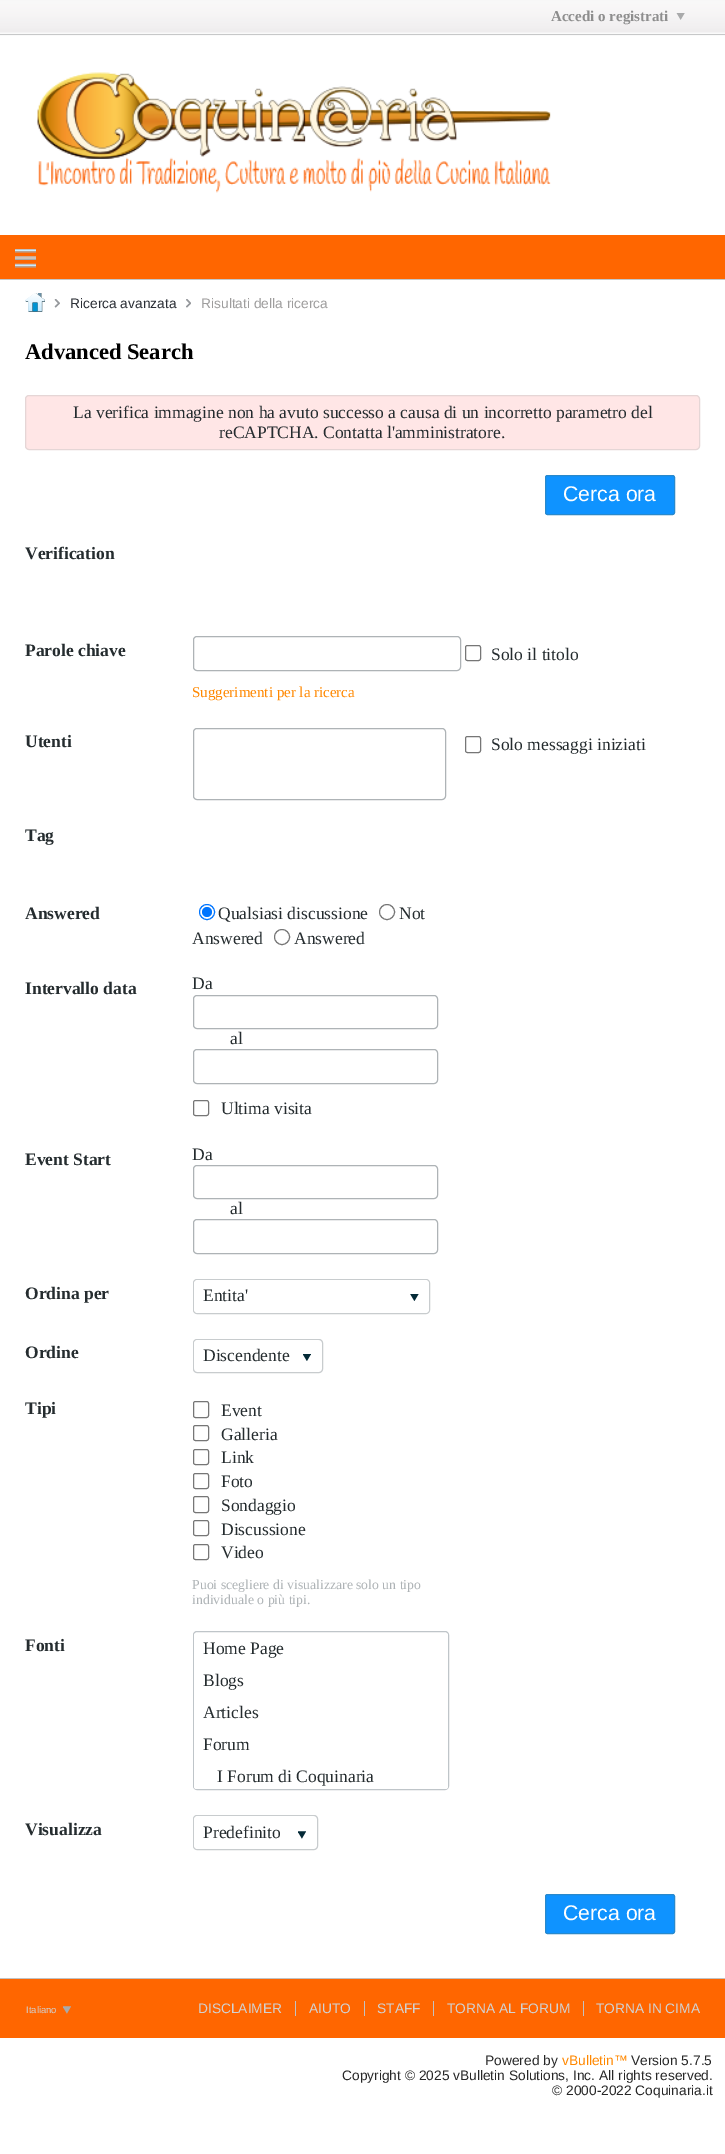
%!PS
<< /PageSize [725 2154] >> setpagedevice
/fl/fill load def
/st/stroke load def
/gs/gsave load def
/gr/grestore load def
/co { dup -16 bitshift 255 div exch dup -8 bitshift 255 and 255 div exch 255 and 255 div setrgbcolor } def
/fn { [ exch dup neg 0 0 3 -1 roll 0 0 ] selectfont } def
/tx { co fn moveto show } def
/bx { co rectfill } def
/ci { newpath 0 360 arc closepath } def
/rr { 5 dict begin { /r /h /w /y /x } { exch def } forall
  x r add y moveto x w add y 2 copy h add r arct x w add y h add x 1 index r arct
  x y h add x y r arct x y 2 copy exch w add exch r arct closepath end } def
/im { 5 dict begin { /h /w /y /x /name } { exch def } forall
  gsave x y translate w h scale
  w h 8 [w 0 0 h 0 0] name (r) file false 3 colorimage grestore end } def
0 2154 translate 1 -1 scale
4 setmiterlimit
0 0 725 2154 16#FFFFFF bx
(media/1.raw) 0 0 725 33 im
(media/2.raw) 676 13 9 7 im
0 33 725 3 16#FAFAFA bx
0 34 725 1 16#C7C8C9 bx
(media/3.raw) 37 72 514 121 im
0 235 725 44 16#FF6600 bx
0 279 725 1 16#C4C7C8 bx
(media/4.raw) 15 249 21 19 im
(media/5.raw) 25 293 20 19 im
(media/6.raw) 54 299 6 9 im
(media/7.raw) 186 299 5 9 im
16#FFE6E6 co
25.5 395.5 674 54 3.5 rr gs fl gr
16#E5D6D6 co
st
16#0F93FF co
545.5 475.5 129 39 2 rr gs fl gr
16#2989CC co
st
16#767676 co
465.5 645.5 15 15 2 rr st
16#AEB3B6 co
193.5 636.5 267 34 3.5 rr st
193.5 728.5 252 71 3.5 rr st
16#767676 co
465.5 736.5 15 16 2 rr st
16#0075FF co
207 912 7.5 ci st
207 912 5 ci fl
16#767676 co
387 912 7.5 ci st
282 937 7.5 ci st
16#AEB3B6 co
193.5 995.5 244 33 3.5 rr st
193.5 1049.5 244 34 3.5 rr st
16#767676 co
193.5 1100.5 15 15 2 rr st
16#AEB3B6 co
193.5 1165.5 244 33 3.5 rr st
193.5 1219.5 244 34 3.5 rr st
16#C8CCCE co
193.5 1279.5 236 34 3.5 rr st
16#FFFFFF co
194 1280 235 33 4 rr fl
(media/8.raw) 410 1294 9 7 im
16#C8CCCE co
193.5 1339.5 129 33 3.5 rr st
16#FFFFFF co
194 1340 127 31 4 rr fl
(media/9.raw) 303 1354 8 7 im
16#767676 co
193.5 1401.5 15 16 2 rr st
193.5 1425.5 15 15 2 rr st
193.5 1449.5 15 15 2 rr st
193.5 1473.5 15 15 2 rr st
193.5 1496.5 15 16 2 rr st
193.5 1520.5 15 15 2 rr st
193.5 1544.5 15 15 2 rr st
16#BFC5C9 co
193.5 1631.5 255 158 3.5 rr st
16#FFFFFF co
194 1633 254 156 2.5 rr fl
16#C8CCCE co
193.5 1815.5 124 34 3.5 rr st
16#FFFFFF co
194 1816 122 33 4 rr fl
(media/10.raw) 298 1831 8 8 im
16#0F93FF co
545.5 1894.5 129 39 2 rr gs fl gr
16#2989CC co
st
0 1979 725 59 16#FF6600 bx
0 1978 725 1 16#C2C2C2 bx
(media/11.raw) 63 2006 8 8 im
295 2001 1 15 16#C2C2C2 bx
364 2001 1 15 16#C2C2C2 bx
433 2001 1 15 16#C2C2C2 bx
583 2001 1 15 16#C2C2C2 bx
(Accedi o registrati) 551 21 /LiberationSerif-Bold 15 16#8E8E8E tx
(Ricerca avanzata) 70 308 /LiberationSans-Regular 13.75 16#2A2E35 tx
(Risultati della ricerca) 201 308 /LiberationSans-Regular 13.75 16#9E9D9D tx
(Advanced Search) 25 359 /LiberationSerif-Bold 22.5 16#000000 tx
(La verifica immagine non ha avuto successo a causa di un incorretto parametro del) 73 418 /LiberationSerif-Regular 17.5 16#252C2F tx
(reCAPTCHA. Contatta l'amministratore.) 219 438 /LiberationSerif-Regular 17.5 16#252C2F tx
(Cerca ora) 563 501 /LiberationSans-Regular 21.25 16#FFFFFF tx
(Verification) 25 559 /LiberationSerif-Bold 17.5 16#252C2F tx
(Parole chiave) 25 656 /LiberationSerif-Bold 17.5 16#252C2F tx
(Solo il titolo) 491 660 /LiberationSerif-Regular 17.5 16#252C2F tx
(Suggerimenti per la ricerca) 192 697 /LiberationSerif-Regular 15 16#FF8800 tx
(Utenti) 25 747 /LiberationSerif-Bold 17.5 16#252C2F tx
(Solo messaggi iniziati) 491 750 /LiberationSerif-Regular 17.5 16#252C2F tx
(Tag) 25 841 /LiberationSerif-Bold 17.5 16#252C2F tx
(Answered) 25 919 /LiberationSerif-Bold 17.5 16#252C2F tx
(Qualsiasi discussione) 218 919 /LiberationSerif-Regular 17.5 16#252C2F tx
(Not) 399 919 /LiberationSerif-Regular 17.5 16#252C2F tx
(Answered) 192 944 /LiberationSerif-Regular 17.5 16#252C2F tx
(Answered) 294 944 /LiberationSerif-Regular 17.5 16#252C2F tx
(Intervallo data) 25 994 /LiberationSerif-Bold 17.5 16#252C2F tx
(Da) 192 989 /LiberationSerif-Regular 17.5 16#252C2F tx
(al) 230 1044 /LiberationSerif-Regular 17.5 16#252C2F tx
(Ultima visita) 221 1114 /LiberationSerif-Regular 17.5 16#252C2F tx
(Event Start) 25 1165 /LiberationSerif-Bold 17.5 16#252C2F tx
(Da) 192 1160 /LiberationSerif-Regular 17.5 16#252C2F tx
(al) 230 1214 /LiberationSerif-Regular 17.5 16#252C2F tx
(Ordina per) 25 1299 /LiberationSerif-Bold 17.5 16#252C2F tx
(Entita') 203 1301 /LiberationSerif-Regular 17.5 16#252C2F tx
(Ordine) 25 1358 /LiberationSerif-Bold 17.5 16#252C2F tx
(Discendente) 203 1361 /LiberationSerif-Regular 17.5 16#252C2F tx
(Tipi) 25 1414 /LiberationSerif-Bold 17.5 16#252C2F tx
(Event) 221 1416 /LiberationSerif-Regular 17.5 16#252C2F tx
(Galleria) 221 1440 /LiberationSerif-Regular 17.5 16#252C2F tx
(Link) 221 1463 /LiberationSerif-Regular 17.5 16#252C2F tx
(Foto) 221 1487 /LiberationSerif-Regular 17.5 16#252C2F tx
(Sondaggio) 221 1511 /LiberationSerif-Regular 17.5 16#252C2F tx
(Discussione) 221 1535 /LiberationSerif-Regular 17.5 16#252C2F tx
(Video) 221 1558 /LiberationSerif-Regular 17.5 16#252C2F tx
(Puoi scegliere di visualizzare solo un tipo) 192 1589 /LiberationSerif-Regular 13.75 16#AEB3B6 tx
(individuale o più tipi.) 192 1604 /LiberationSerif-Regular 13.75 16#AEB3B6 tx
(Fonti) 25 1651 /LiberationSerif-Bold 17.5 16#252C2F tx
(Home Page) 203 1654 /LiberationSerif-Regular 17.5 16#252C2F tx
(Blogs) 203 1686 /LiberationSerif-Regular 17.5 16#252C2F tx
(Articles) 203 1718 /LiberationSerif-Regular 17.5 16#252C2F tx
(Forum) 203 1750 /LiberationSerif-Regular 17.5 16#252C2F tx
(I Forum di Coquinaria) 217 1782 /LiberationSerif-Regular 17.5 16#252C2F tx
(Visualizza) 25 1835 /LiberationSerif-Bold 17.5 16#252C2F tx
(Predefinito) 203 1838 /LiberationSerif-Regular 17.5 16#252C2F tx
(Cerca ora) 563 1920 /LiberationSans-Regular 21.25 16#FFFFFF tx
(Italiano) 26 2013 /LiberationSans-Regular 9.5 16#D2D2D2 tx
(DISCLAIMER) 198 2013 /LiberationSans-Regular 13.75 16#D2D2D2 tx
(AIUTO) 309 2013 /LiberationSans-Regular 13.75 16#D2D2D2 tx
(STAFF) 377 2013 /LiberationSans-Regular 13.75 16#D2D2D2 tx
(TORNA AL FORUM) 447 2013 /LiberationSans-Regular 13.75 16#D2D2D2 tx
(TORNA IN CIMA) 596 2013 /LiberationSans-Regular 13.75 16#D2D2D2 tx
(Powered by) 485 2065 /LiberationSans-Regular 13.75 16#272727 tx
(vBulletin™) 562 2065 /LiberationSans-Regular 13.75 16#FF8800 tx
(Version 5.7.5) 631 2065 /LiberationSans-Regular 13.75 16#272727 tx
(Copyright © 2025 vBulletin Solutions, Inc. All rights reserved.) 342 2080 /LiberationSans-Regular 13.75 16#272727 tx
(© 2000-2022 Coquinaria.it) 552 2095 /LiberationSans-Regular 13.75 16#272727 tx
showpage
